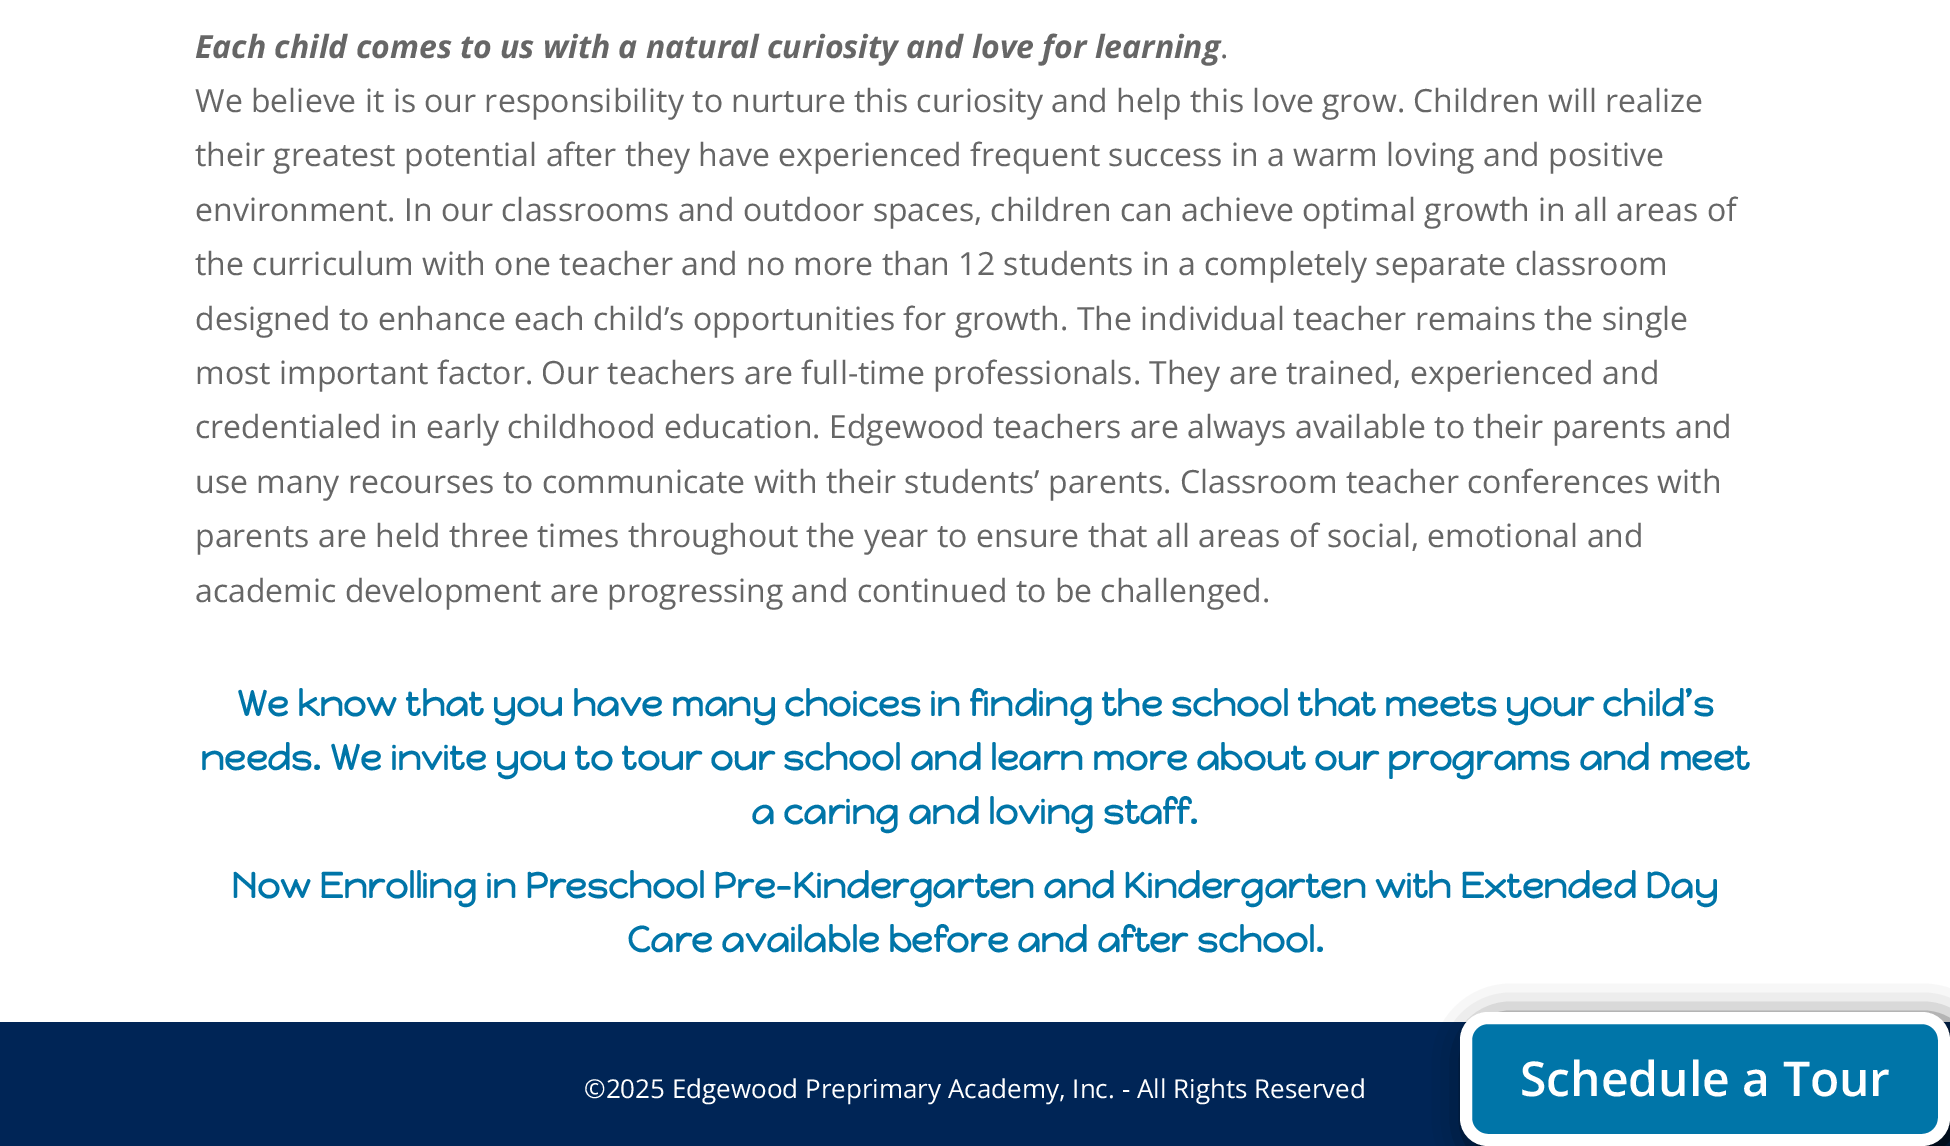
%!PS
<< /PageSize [1950 1146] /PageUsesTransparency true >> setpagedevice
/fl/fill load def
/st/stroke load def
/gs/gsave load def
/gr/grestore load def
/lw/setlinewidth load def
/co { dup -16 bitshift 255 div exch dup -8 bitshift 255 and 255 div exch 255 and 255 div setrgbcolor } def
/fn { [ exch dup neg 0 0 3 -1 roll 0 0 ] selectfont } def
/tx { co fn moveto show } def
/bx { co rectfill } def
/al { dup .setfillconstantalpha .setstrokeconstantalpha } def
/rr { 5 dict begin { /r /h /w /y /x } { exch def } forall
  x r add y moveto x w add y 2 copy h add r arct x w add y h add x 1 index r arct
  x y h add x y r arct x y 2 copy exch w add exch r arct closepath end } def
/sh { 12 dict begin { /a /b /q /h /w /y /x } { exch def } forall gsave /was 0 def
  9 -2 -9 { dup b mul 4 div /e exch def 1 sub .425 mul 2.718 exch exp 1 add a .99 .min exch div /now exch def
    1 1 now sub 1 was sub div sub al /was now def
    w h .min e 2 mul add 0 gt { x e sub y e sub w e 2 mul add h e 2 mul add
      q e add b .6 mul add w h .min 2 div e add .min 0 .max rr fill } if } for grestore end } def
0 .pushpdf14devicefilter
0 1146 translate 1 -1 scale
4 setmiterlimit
0 0 1950 1146 16#FFFFFF bx
0 1022 1950 124 16#002556 bx
16#000000 co
1472 1024 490 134 28 18 1 sh
16#0075A8 co
1466 1018 478 122 22 rr gs fl gr
16#FFFFFF co
12 lw
st
(Each child comes to us with a natural curiosity and love for learning) 195 58 /OpenSans-BoldItalic 32 16#666666 tx
(.) 1220 58 /OpenSans-Regular 32 16#666666 tx
(We believe it is our responsibility to nurture this curiosity and help this love grow. Children will realize) 195 112 /OpenSans-Regular 32 16#666666 tx
(their greatest potential after they have experienced frequent success in a warm loving and positive) 195 166 /OpenSans-Regular 32 16#666666 tx
(environment. In our classrooms and outdoor spaces, children can achieve optimal growth in all areas of) 195 221 /OpenSans-Regular 32 16#666666 tx
(the curriculum with one teacher and no more than 12 students in a completely separate classroom) 195 275 /OpenSans-Regular 32 16#666666 tx
(designed to enhance each child’s opportunities for growth. The individual teacher remains the single) 195 330 /OpenSans-Regular 32 16#666666 tx
(most important factor. Our teachers are full-time professionals. They are trained, experienced and) 195 384 /OpenSans-Regular 32 16#666666 tx
(credentialed in early childhood education. Edgewood teachers are always available to their parents and) 195 438 /OpenSans-Regular 32 16#666666 tx
(use many recourses to communicate with their students’ parents. Classroom teacher conferences with) 195 493 /OpenSans-Regular 32 16#666666 tx
(parents are held three times throughout the year to ensure that all areas of social, emotional and) 195 547 /OpenSans-Regular 32 16#666666 tx
(academic development are progressing and continued to be challenged.) 195 602 /OpenSans-Regular 32 16#666666 tx
(We know that you have many choices in finding the school that meets your child’s) 237 716 /HappyMonkey-Bold 36 16#0075A8 tx
(needs. We invite you to tour our school and learn more about our programs and meet) 200 770 /HappyMonkey-Bold 36 16#0075A8 tx
(a caring and loving staff.) 751 824 /HappyMonkey-Bold 36 16#0075A8 tx
(Now Enrolling in Preschool Pre-Kindergarten and Kindergarten with Extended Day) 231 898 /HappyMonkey-Bold 36 16#0075A8 tx
(Care available before and after school.) 627 952 /HappyMonkey-Bold 36 16#0075A8 tx
(Schedule a Tour) 1520 1096 /OpenSans-SemiBold 48 16#FFFFFF tx
(©2025 Edgewood Preprimary Academy, Inc. - All Rights Reserved) 584 1098 /OpenSans-Regular 26 16#FFFFFF tx
.poppdf14devicefilter showpage
